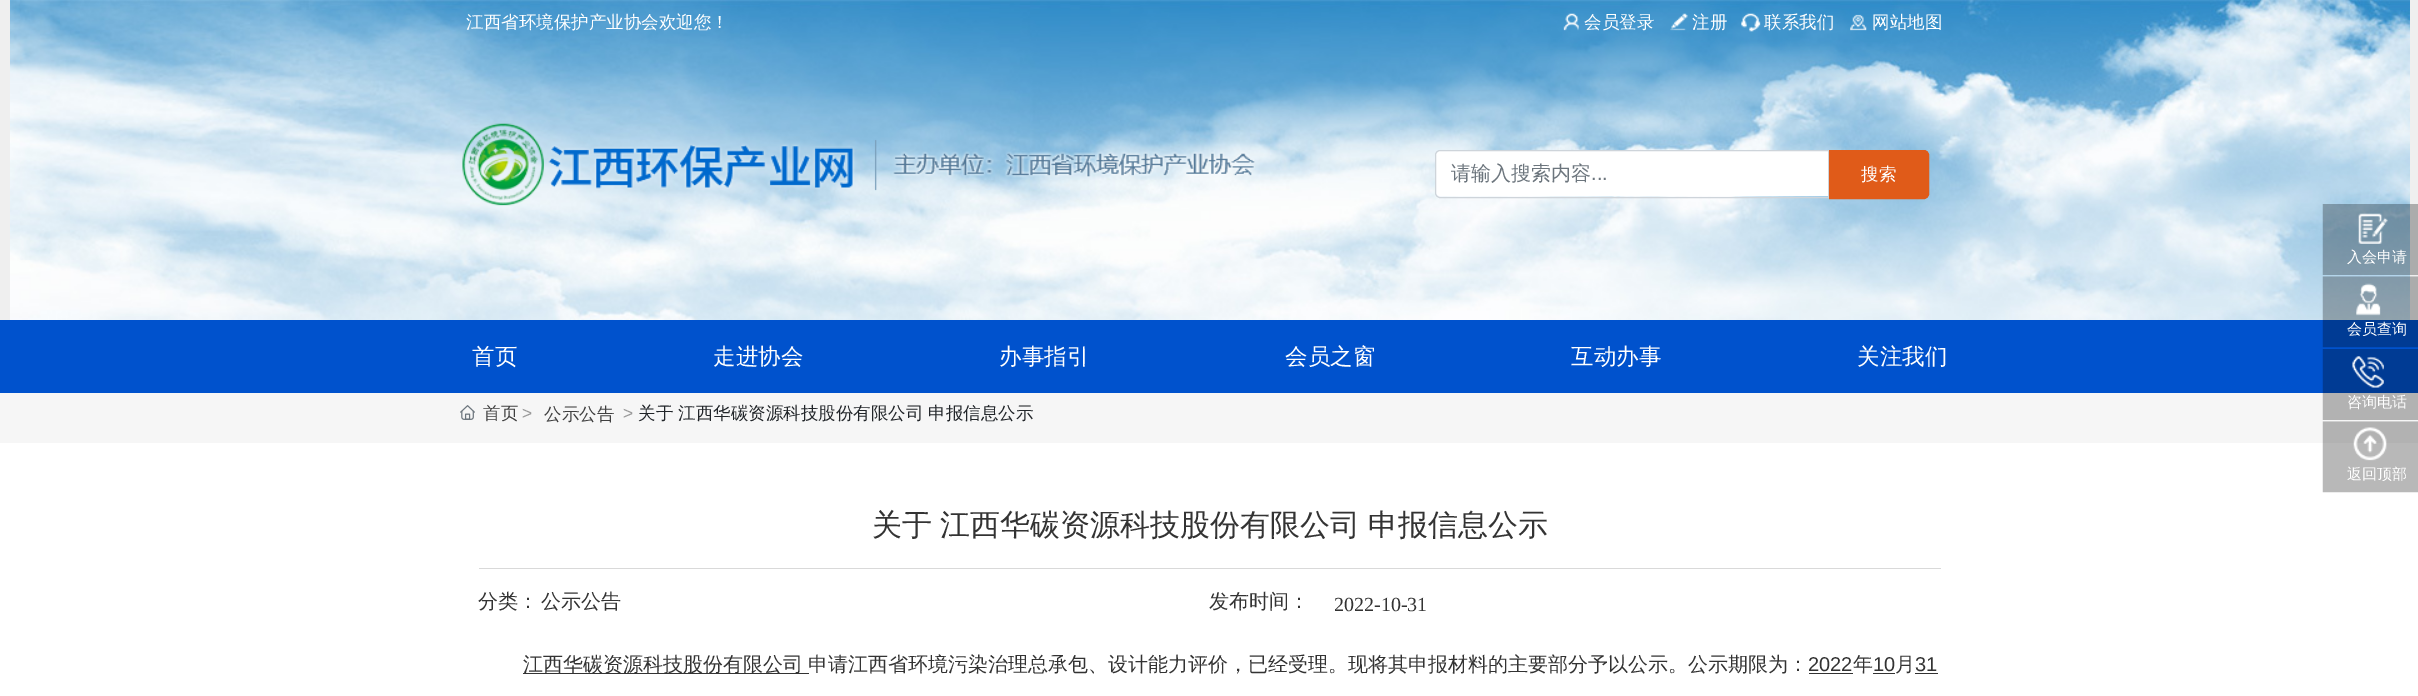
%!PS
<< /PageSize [2418 696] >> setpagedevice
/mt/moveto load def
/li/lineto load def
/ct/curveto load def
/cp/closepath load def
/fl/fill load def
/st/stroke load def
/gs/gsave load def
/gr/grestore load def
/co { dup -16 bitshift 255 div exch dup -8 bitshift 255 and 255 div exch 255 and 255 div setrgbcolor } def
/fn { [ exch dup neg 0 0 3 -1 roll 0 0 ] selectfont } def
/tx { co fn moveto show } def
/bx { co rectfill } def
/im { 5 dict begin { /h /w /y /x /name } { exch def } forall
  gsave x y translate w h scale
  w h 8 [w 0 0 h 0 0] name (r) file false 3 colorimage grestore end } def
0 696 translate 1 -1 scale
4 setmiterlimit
0 0 2418 696 16#FFFFFF bx
0 0 2418 320 16#EFEFEF bx
(media/1.raw) 10 0 2400 320 im
(media/2.raw) 1563 13 16 18 im
(media/3.raw) 1670 13 18 18 im
(media/4.raw) 1741 13 20 19 im
(media/5.raw) 1850 14 17 17 im
(media/6.raw) 462 123 793 83 im
16#FFFFFF co
1440 151 mt 1828 151 li 1828 196 li 1440 196 li 1438 196 1436 194 1436 192 ct 1436 155 li 1436 153 1438 151 1440 151 ct cp fl
16#CED4DA co
1440 150.5 mt 1828.5 150.5 li 1828.5 197.5 li 1440 197.5 li 1437.5 197.5 1435.5 195.5 1435.5 193 ct 1435.5 155 li 1435.5 152.5 1437.5 150.5 1440 150.5 ct cp st
16#E05B19 co
1829.5 150.5 mt 1924 150.5 li 1926.5 150.5 1928.5 152.5 1928.5 155 ct 1928.5 194 li 1928.5 196.5 1926.5 198.5 1924 198.5 ct 1829.5 198.5 li cp gs fl gr
st
0 320 2418 73 16#0052CD bx
(media/7.raw) 2322 204 96 71 im
(media/8.raw) 2322 276 96 72 im
0 393 2418 50 16#F6F6F6 bx
(media/9.raw) 2322 349 96 71 im
(media/10.raw) 2322 421 96 72 im
(media/11.raw) 460 405 15 15 im
479 568 1462 1 16#D9D9D9 bx
523 673 286 1 16#333333 bx
1809 673 44 1 16#333333 bx
1873 673 22 1 16#333333 bx
1915 673 23 1 16#333333 bx
(江西省环境保护产业协会欢迎您！) 466 28 /WenQuanYiZenHei-Medium 17.5 16#FFFFFF tx
(会员登录) 1584 28 /WenQuanYiZenHei-Medium 17.5 16#FFFFFF tx
(注册) 1692 28 /WenQuanYiZenHei-Medium 17.5 16#FFFFFF tx
(联系我们) 1764 28 /WenQuanYiZenHei-Medium 17.5 16#FFFFFF tx
(网站地图) 1872 28 /WenQuanYiZenHei-Medium 17.5 16#FFFFFF tx
(请输入搜索内容) 1451 180 /WenQuanYiZenHei-Medium 20 16#6C757D tx
(...) 1591 180 /LiberationSans-Regular 20 16#6C757D tx
(搜索) 1861 180 /WenQuanYiZenHei-Medium 17.5 16#FFFFFF tx
(首页) 472 364 /WenQuanYiZenHei-Medium 22.5 16#FFFFFF tx
(走进协会) 713 364 /WenQuanYiZenHei-Medium 22.5 16#FFFFFF tx
(办事指引) 999 364 /WenQuanYiZenHei-Medium 22.5 16#FFFFFF tx
(会员之窗) 1285 364 /WenQuanYiZenHei-Medium 22.5 16#FFFFFF tx
(互动办事) 1571 364 /WenQuanYiZenHei-Medium 22.5 16#FFFFFF tx
(关注我们) 1857 364 /WenQuanYiZenHei-Medium 22.5 16#FFFFFF tx
(入会申请) 2347 262 /WenQuanYiZenHei-Medium 15 16#FFFFFF tx
(会员查询) 2347 334 /WenQuanYiZenHei-Medium 15 16#FFFFFF tx
(咨询电话) 2347 407 /WenQuanYiZenHei-Medium 15 16#FFFFFF tx
(返回顶部) 2347 479 /WenQuanYiZenHei-Medium 15 16#FFFFFF tx
(首页) 483 419 /WenQuanYiZenHei-Medium 17.5 16#404040 tx
(>) 522 419 /LiberationSans-Regular 17.5 16#999999 tx
(公示公告) 544 420 /WenQuanYiZenHei-Medium 17.5 16#404040 tx
(>) 623 419 /LiberationSans-Regular 17.5 16#999999 tx
(关于 江西华碳资源科技股份有限公司 申报信息公示) 638 419 /WenQuanYiZenHei-Medium 17.5 16#212529 tx
/WenQuanYiZenHei-Medium 30 fn
16#333333 co
872 535 mt -1 0 32 (关于 江西华碳资源科技股份有限公司 申报信息公示) widthshow
(分类：) 478 608 /WenQuanYiZenHei-Medium 20 16#333333 tx
(公示公告) 541 608 /WenQuanYiZenHei-Medium 20 16#333333 tx
(发布时间：) 1209 608 /WenQuanYiZenHei-Medium 20 16#333333 tx
(2022-10-31) 1334 611 /LiberationSerif-Regular 20 16#333333 tx
(江西华碳资源科技股份有限公司) 523 671 /WenQuanYiZenHei-Medium 20 16#333333 tx
(申请江西省环境污染治理总承包、设计能力评价，已经受理。现将其申报材料的主要部分予以公示。公示期限为：) 808 671 /WenQuanYiZenHei-Medium 20 16#333333 tx
(2022) 1808 671 /LiberationSans-Regular 20 16#333333 tx
(年) 1853 671 /WenQuanYiZenHei-Medium 20 16#333333 tx
(10) 1873 671 /LiberationSans-Regular 20 16#333333 tx
(月) 1895 671 /WenQuanYiZenHei-Medium 20 16#333333 tx
(31) 1915 671 /LiberationSans-Regular 20 16#333333 tx
showpage
